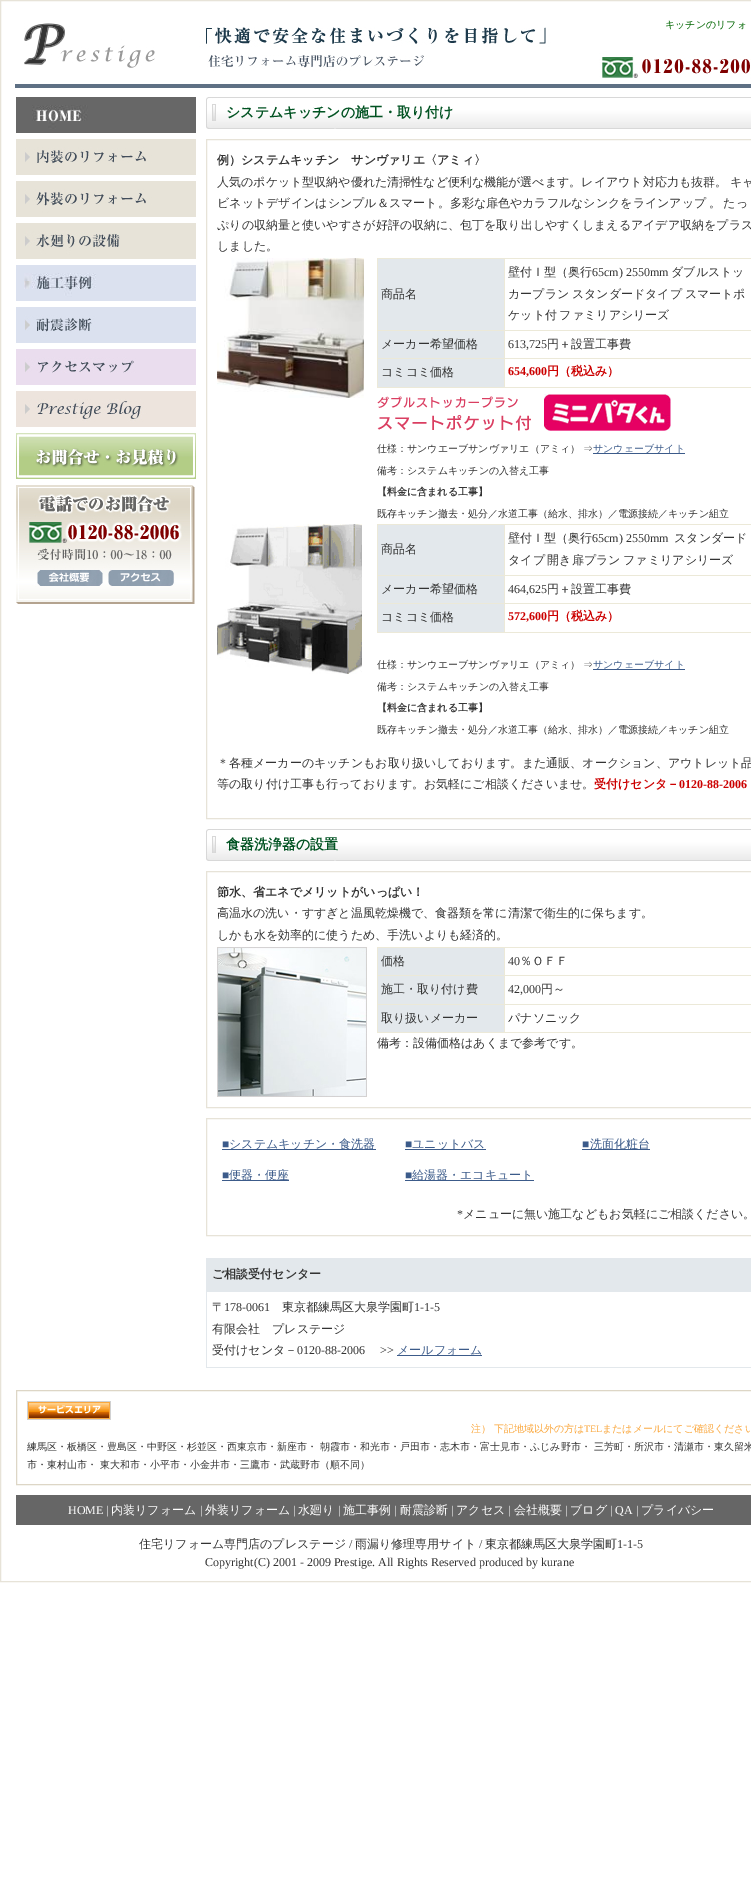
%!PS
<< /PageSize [751 1902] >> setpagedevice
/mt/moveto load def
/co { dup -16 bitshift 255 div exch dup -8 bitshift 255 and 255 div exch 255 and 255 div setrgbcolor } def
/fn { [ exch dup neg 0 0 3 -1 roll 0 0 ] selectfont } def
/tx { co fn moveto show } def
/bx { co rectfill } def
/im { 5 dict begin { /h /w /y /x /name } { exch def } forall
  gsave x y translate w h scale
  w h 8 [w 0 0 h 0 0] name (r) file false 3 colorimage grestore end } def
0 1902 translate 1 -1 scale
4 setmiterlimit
0 0 751 1902 16#FFFFFF bx
16#E7E3D8 co
.5 .5 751 1581 rectstroke
(media/1.raw) 15 27 736 61 im
(media/2.raw) 24 23 131 45 im
(media/3.raw) 16 97 180 36 im
(media/4.raw) 16 139 180 36 im
(media/5.raw) 16 181 180 36 im
(media/6.raw) 16 223 180 36 im
(media/7.raw) 16 265 180 36 im
(media/8.raw) 16 307 180 36 im
(media/9.raw) 16 349 180 36 im
(media/10.raw) 16 391 180 36 im
(media/11.raw) 16 433 180 46 im
(media/12.raw) 16 485 179 119 im
(media/13.raw) 206 97 545 32 im
206.5 139.5 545 679 rectstroke
(media/14.raw) 217 258 147 140 im
377 258 374 130 16#ECE9D8 bx
378 259 126 71 16#E3E8EC bx
505 259 246 71 16#FFFFFF bx
378 331 126 27 16#E3E8EC bx
505 331 246 27 16#FFFFFF bx
378 359 126 28 16#E3E8EC bx
505 359 246 28 16#FFFFFF bx
(media/15.raw) 377 394 294 37 im
593 453 92 1 16#3C5B8A bx
(media/16.raw) 217 524 145 150 im
377 524 374 109 16#ECE9D8 bx
378 525 126 50 16#E3E8EC bx
505 525 246 50 16#FFFFFF bx
378 576 126 27 16#E3E8EC bx
505 576 246 27 16#FFFFFF bx
378 604 126 28 16#E3E8EC bx
505 604 246 28 16#FFFFFF bx
593 669 92 1 16#3C5B8A bx
(media/13.raw) 206 829 545 32 im
16#E7E3D8 co
206.5 871.5 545 236 rectstroke
(media/17.raw) 217 947 150 150 im
377 947 374 86 16#ECE9D8 bx
378 948 126 27 16#E3E8EC bx
505 948 246 27 16#FFFFFF bx
378 976 126 28 16#E3E8EC bx
505 976 246 28 16#FFFFFF bx
378 1005 126 27 16#E3E8EC bx
505 1005 246 27 16#FFFFFF bx
16#E7E3D8 co
206.5 1118.5 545 117 rectstroke
222 1149 154 1 16#3C5B8A bx
405 1149 81 1 16#3C5B8A bx
582 1149 68 1 16#3C5B8A bx
222 1180 67 1 16#3C5B8A bx
405 1180 129 1 16#3C5B8A bx
206 1258 545 110 16#E3E8EC bx
207 1292 544 75 16#FFFFFF bx
397 1355 85 1 16#3C5B8A bx
16#DDD6C6 co
16.5 1390.5 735 94 rectstroke
(media/18.raw) 27 1401 84 19 im
16 1495 735 30 16#666666 bx
(キッチンのリフォ) 665 28 /WenQuanYiZenHei-Medium 10 16#006600 tx
(システムキッチンの施工・取り付け) 226 117 /WenQuanYiZenHei-Bold 14 16#005221 tx
(例）システムキッチン　サンヴァリエ〈アミィ〉) 217 164 /WenQuanYiZenHei-Bold 12 16#333333 tx
(人気のポケット型収納や優れた清掃性など便利な機能が選べます。レイアウト対応力も抜群。) 217 186 /WenQuanYiZenHei-Medium 12 16#333333 tx
(キャ) 730 186 /WenQuanYiZenHei-Medium 12 16#333333 tx
217 207 mt -1 0 32 (ビネットデザインはシンプル＆スマート。多彩な扉色やカラフルなシンクをラインアップ 。 たっ) widthshow
(ぷりの収納量と使いやすさが好評の収納に、包丁を取り出しやすくしまえるアイデア収納をプラス) 217 229 /WenQuanYiZenHei-Medium 12 16#333333 tx
(しました。) 217 250 /WenQuanYiZenHei-Medium 12 16#333333 tx
(商品名) 381 298 /WenQuanYiZenHei-Medium 12 16#333333 tx
(壁付Ｉ型（奥行) 508 276 /WenQuanYiZenHei-Medium 12 16#333333 tx
(65cm\) 2550mm) 592 276 /LiberationSerif-Regular 12 16#333333 tx
(ダブルストッ) 671 276 /WenQuanYiZenHei-Medium 12 16#333333 tx
508 298 mt -1 0 32 (カープラン スタンダードタイプ スマートポ) widthshow
508 319 mt -1 0 32 (ケット付 ファミリアシリーズ) widthshow
(メーカー希望価格) 381 348 /WenQuanYiZenHei-Medium 12 16#333333 tx
(613,725) 508 348 /LiberationSerif-Regular 12 16#333333 tx
(円＋設置工事費) 547 348 /WenQuanYiZenHei-Medium 12 16#333333 tx
(コミコミ価格) 381 376 /WenQuanYiZenHei-Medium 12 16#333333 tx
(654,600) 508 375 /LiberationSerif-Bold 12 16#CC0000 tx
(円（税込み）) 547 375 /WenQuanYiZenHei-Bold 12 16#CC0000 tx
(仕様：サンウエーブサンヴァリエ（アミィ）) 377 452 /WenQuanYiZenHei-Medium 10 16#333333 tx
(⇒) 583 452 /WenQuanYiZenHei-Medium 10 16#333333 tx
(サンウェーブサイト) 593 452 /WenQuanYiZenHei-Medium 10 16#3C5B8A tx
(備考：システムキッチンの入替え工事) 377 474 /WenQuanYiZenHei-Medium 10 16#333333 tx
(【料金に含まれる工事】) 377 495 /WenQuanYiZenHei-Bold 10 16#333333 tx
(既存キッチン撤去・処分／水道工事（給水、排水）／電源接続／キッチン組立) 377 517 /WenQuanYiZenHei-Medium 10 16#333333 tx
(商品名) 381 553 /WenQuanYiZenHei-Medium 12 16#333333 tx
(壁付Ｉ型（奥行) 508 542 /WenQuanYiZenHei-Medium 12 16#333333 tx
(65cm\) 2550mm) 592 542 /LiberationSerif-Regular 12 16#333333 tx
(スタンダード) 674 542 /WenQuanYiZenHei-Medium 12 16#333333 tx
508 564 mt -1 0 32 (タイプ 開き扉プラン ファミリアシリーズ) widthshow
(メーカー希望価格) 381 593 /WenQuanYiZenHei-Medium 12 16#333333 tx
(464,625) 508 593 /LiberationSerif-Regular 12 16#333333 tx
(円＋設置工事費) 547 593 /WenQuanYiZenHei-Medium 12 16#333333 tx
(コミコミ価格) 381 621 /WenQuanYiZenHei-Medium 12 16#333333 tx
(572,600) 508 620 /LiberationSerif-Bold 12 16#CC0000 tx
(円（税込み）) 547 620 /WenQuanYiZenHei-Bold 12 16#CC0000 tx
(仕様：サンウエーブサンヴァリエ（アミィ）) 377 668 /WenQuanYiZenHei-Medium 10 16#333333 tx
(⇒) 583 668 /WenQuanYiZenHei-Medium 10 16#333333 tx
(サンウェーブサイト) 593 668 /WenQuanYiZenHei-Medium 10 16#3C5B8A tx
(備考：システムキッチンの入替え工事) 377 690 /WenQuanYiZenHei-Medium 10 16#333333 tx
(【料金に含まれる工事】) 377 711 /WenQuanYiZenHei-Bold 10 16#333333 tx
(既存キッチン撤去・処分／水道工事（給水、排水）／電源接続／キッチン組立) 377 733 /WenQuanYiZenHei-Medium 10 16#333333 tx
(＊各種メーカーのキッチンもお取り扱いしております。また通販、オークション、アウトレット品) 217 767 /WenQuanYiZenHei-Medium 12 16#333333 tx
(等の取り付け工事も行っております。お気軽にご相談くださいませ。) 217 788 /WenQuanYiZenHei-Medium 12 16#333333 tx
(受付けセンタ－) 594 788 /WenQuanYiZenHei-Bold 12 16#CC0000 tx
(0120-88-2006) 679 788 /LiberationSerif-Bold 12 16#CC0000 tx
(食器洗浄器の設置) 226 849 /WenQuanYiZenHei-Bold 14 16#005221 tx
(節水、省エネでメリットがいっぱい！) 217 896 /WenQuanYiZenHei-Bold 12 16#333333 tx
(高温水の洗い・すすぎと温風乾燥機で、食器類を常に清潔で衛生的に保ちます。) 217 917 /WenQuanYiZenHei-Medium 12 16#333333 tx
(しかも水を効率的に使うため、手洗いよりも経済的。) 217 939 /WenQuanYiZenHei-Medium 12 16#333333 tx
(価格) 381 965 /WenQuanYiZenHei-Medium 12 16#333333 tx
(40) 508 965 /LiberationSerif-Regular 12 16#333333 tx
(％ＯＦＦ) 520 965 /WenQuanYiZenHei-Medium 12 16#333333 tx
(施工・取り付け費) 381 993 /WenQuanYiZenHei-Medium 12 16#333333 tx
(42,000) 508 993 /LiberationSerif-Regular 12 16#333333 tx
(円～) 541 993 /WenQuanYiZenHei-Medium 12 16#333333 tx
(取り扱いメーカー) 381 1022 /WenQuanYiZenHei-Medium 12 16#333333 tx
(パナソニック) 508 1022 /WenQuanYiZenHei-Medium 12 16#333333 tx
(備考：設備価格はあくまで参考です。) 377 1047 /WenQuanYiZenHei-Medium 12 16#333333 tx
(■) 222 1148 /LiberationSerif-Regular 12 16#3C5B8A tx
(システムキッチン・食洗器) 229 1148 /WenQuanYiZenHei-Medium 12 16#3C5B8A tx
(■) 405 1148 /LiberationSerif-Regular 12 16#3C5B8A tx
(ユニットバス) 412 1148 /WenQuanYiZenHei-Medium 12 16#3C5B8A tx
(■) 582 1148 /LiberationSerif-Regular 12 16#3C5B8A tx
(洗面化粧台) 590 1148 /WenQuanYiZenHei-Medium 12 16#3C5B8A tx
(■) 222 1179 /LiberationSerif-Regular 12 16#3C5B8A tx
(便器・便座) 229 1179 /WenQuanYiZenHei-Medium 12 16#3C5B8A tx
(■) 405 1179 /LiberationSerif-Regular 12 16#3C5B8A tx
(給湯器・エコキュート) 412 1179 /WenQuanYiZenHei-Medium 12 16#3C5B8A tx
(*) 457 1218 /LiberationSerif-Regular 12 16#333333 tx
(メニューに無い施工などもお気軽にご相談ください。) 463 1218 /WenQuanYiZenHei-Medium 12 16#333333 tx
(ご相談受付センター) 212 1278 /WenQuanYiZenHei-Bold 12 16#333333 tx
(〒) 212 1311 /WenQuanYiZenHei-Medium 12 16#333333 tx
(178-0061) 224 1311 /LiberationSerif-Regular 12 16#333333 tx
(東京都練馬区大泉学園町) 282 1311 /WenQuanYiZenHei-Medium 12 16#333333 tx
(1-1-5) 414 1311 /LiberationSerif-Regular 12 16#333333 tx
(有限会社　プレステージ) 212 1333 /WenQuanYiZenHei-Medium 12 16#333333 tx
(受付けセンタ－) 212 1354 /WenQuanYiZenHei-Medium 12 16#333333 tx
(0120-88-2006) 297 1354 /LiberationSerif-Regular 12 16#333333 tx
(>>) 380 1354 /LiberationSerif-Regular 12 16#333333 tx
(メールフォーム) 397 1354 /WenQuanYiZenHei-Medium 12 16#3C5B8A tx
(注） 下記地域以外の方は) 471 1432 /WenQuanYiZenHei-Medium 10 16#FBA83E tx
(TEL) 584 1432 /LiberationSerif-Regular 10 16#FBA83E tx
(またはメールにてご確認ください) 602 1432 /WenQuanYiZenHei-Medium 10 16#FBA83E tx
(練馬区・板橋区・豊島区・中野区・杉並区・西東京市・新座市・ 朝霞市・和光市・戸田市・志木市・富士見市・ふじみ野市・ 三芳町・所沢市・清瀬市・東久留米) 27 1450 /WenQuanYiZenHei-Medium 10 16#333333 tx
(市・東村山市・ 東大和市・小平市・小金井市・三鷹市・武蔵野市（順不同）) 27 1468 /WenQuanYiZenHei-Medium 10 16#333333 tx
(HOME |) 68 1514 /LiberationSerif-Regular 12 16#FFFFFF tx
(内装リフォーム) 111 1514 /WenQuanYiZenHei-Medium 12 16#FFFFFF tx
(|) 200 1514 /LiberationSerif-Regular 12 16#FFFFFF tx
(外装リフォーム) 205 1514 /WenQuanYiZenHei-Medium 12 16#FFFFFF tx
(|) 293 1514 /LiberationSerif-Regular 12 16#FFFFFF tx
(水廻り) 298 1514 /WenQuanYiZenHei-Medium 12 16#FFFFFF tx
(|) 338 1514 /LiberationSerif-Regular 12 16#FFFFFF tx
(施工事例) 343 1514 /WenQuanYiZenHei-Medium 12 16#FFFFFF tx
(|) 394 1514 /LiberationSerif-Regular 12 16#FFFFFF tx
(耐震診断) 400 1514 /WenQuanYiZenHei-Medium 12 16#FFFFFF tx
(|) 451 1514 /LiberationSerif-Regular 12 16#FFFFFF tx
(アクセス) 456 1514 /WenQuanYiZenHei-Medium 12 16#FFFFFF tx
(|) 508 1514 /LiberationSerif-Regular 12 16#FFFFFF tx
(会社概要) 514 1514 /WenQuanYiZenHei-Medium 12 16#FFFFFF tx
(|) 565 1514 /LiberationSerif-Regular 12 16#FFFFFF tx
(ブログ) 570 1514 /WenQuanYiZenHei-Medium 12 16#FFFFFF tx
(| QA |) 610 1514 /LiberationSerif-Regular 12 16#FFFFFF tx
(プライバシー) 641 1514 /WenQuanYiZenHei-Medium 12 16#FFFFFF tx
(住宅リフォーム専門店のプレステージ) 139 1548 /WenQuanYiZenHei-Medium 12 16#333333 tx
(/) 349 1548 /LiberationSerif-Regular 12 16#333333 tx
(雨漏り修理専用サイト) 355 1548 /WenQuanYiZenHei-Medium 12 16#333333 tx
(/) 479 1548 /LiberationSerif-Regular 12 16#333333 tx
(東京都練馬区大泉学園町) 485 1548 /WenQuanYiZenHei-Medium 12 16#333333 tx
(1-1-5) 617 1548 /LiberationSerif-Regular 12 16#333333 tx
(Copyright\(C\) 2001 - 2009 Prestige. All Rights Reserved produced by kurane) 205 1566 /LiberationSerif-Regular 12 16#333333 tx
showpage
